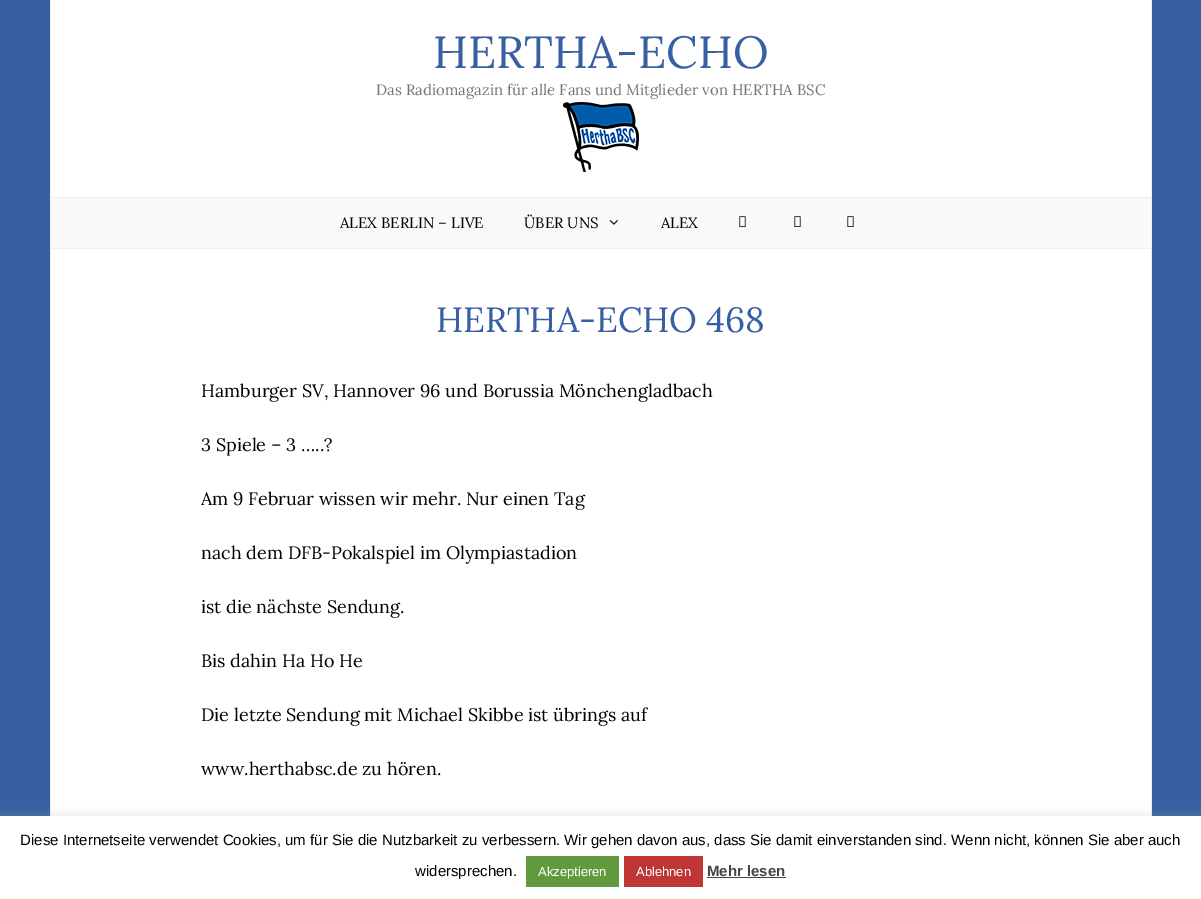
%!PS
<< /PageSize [1201 899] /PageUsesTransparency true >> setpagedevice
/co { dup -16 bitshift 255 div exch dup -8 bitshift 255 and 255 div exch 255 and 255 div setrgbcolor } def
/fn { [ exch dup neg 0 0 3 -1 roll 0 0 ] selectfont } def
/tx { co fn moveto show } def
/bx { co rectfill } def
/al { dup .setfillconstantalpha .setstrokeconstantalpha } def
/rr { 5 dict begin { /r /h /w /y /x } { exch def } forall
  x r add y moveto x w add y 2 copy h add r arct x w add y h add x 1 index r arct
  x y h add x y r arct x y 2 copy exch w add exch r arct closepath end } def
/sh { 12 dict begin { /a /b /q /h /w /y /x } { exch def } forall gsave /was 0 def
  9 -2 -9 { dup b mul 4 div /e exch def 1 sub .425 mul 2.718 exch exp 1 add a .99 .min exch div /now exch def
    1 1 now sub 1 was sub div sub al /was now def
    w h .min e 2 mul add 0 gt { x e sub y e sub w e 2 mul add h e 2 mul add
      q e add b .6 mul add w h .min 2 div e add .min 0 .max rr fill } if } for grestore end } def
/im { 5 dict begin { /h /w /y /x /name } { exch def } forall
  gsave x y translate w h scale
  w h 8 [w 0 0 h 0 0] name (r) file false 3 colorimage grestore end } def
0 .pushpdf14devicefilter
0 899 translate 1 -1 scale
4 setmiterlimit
0 0 1201 899 16#375FA3 bx
1151 0 1 816 16#EFEFEF bx
50 0 1 816 16#EFEFEF bx
51 0 1100 197 16#FFFFFF bx
(media/1.raw) 563 102 76 70 im
51 198 1100 50 16#F9F9F9 bx
51 197 1100 1 16#EFEFEF bx
51 248 1100 1 16#EFEFEF bx
(media/2.raw) 609 220 9 5 im
(media/3.raw) 739 216 7 11 im
(media/3.raw) 794 216 7 11 im
(media/3.raw) 847 216 7 11 im
51 249 1100 567 16#FFFFFF bx
16#ACABAB co
0 815 1201 83 0 5 .3 sh
0 816 1201 83 16#FFFFFF bx
526 856 93 31 16#609A3C bx
624 856 79 31 16#BF3636 bx
707 877 79 1 16#444444 bx
(HERTHA-ECHO) 433 68 /Lora-Regular 45 16#375FA3 tx
(Das Radiomagazin für alle Fans und Mitglieder von HERTHA BSC) 376 95 /Lora-Regular 15 16#757575 tx
(ALEX BERLIN – LIVE) 340 228 /Lora-Regular 15 16#000000 tx
(ÜBER UNS) 524 228 /Lora-Regular 15 16#000000 tx
(ALEX) 661 228 /Lora-Regular 15 16#000000 tx
(HERTHA-ECHO 468) 436 332 /Lora-Regular 35 16#375FA3 tx
(Hamburger SV, Hannover 96 und Borussia Mönchengladbach) 201 397 /Lora-Regular 18 16#000000 tx
(3 Spiele – 3 …..?) 201 451 /Lora-Regular 18 16#000000 tx
(Am 9 Februar wissen wir mehr. Nur einen Tag) 201 505 /Lora-Regular 18 16#000000 tx
(nach dem DFB-Pokalspiel im Olympiastadion) 201 559 /Lora-Regular 18 16#000000 tx
(ist die nächste Sendung.) 201 613 /Lora-Regular 18 16#000000 tx
(Bis dahin Ha Ho He) 201 667 /Lora-Regular 18 16#000000 tx
(Die letzte Sendung mit Michael Skibbe ist übrings auf) 201 721 /Lora-Regular 18 16#000000 tx
(www.herthabsc.de zu hören.) 201 775 /Lora-Regular 18 16#000000 tx
(Diese Internetseite verwendet Cookies, um für Sie die Nutzbarkeit zu verbessern. Wir gehen davon aus, dass Sie damit einverstanden sind. Wenn nicht, können Sie aber auch) 20 845 /LiberationSans-Regular 15 16#000000 tx
(widersprechen.) 415 876 /LiberationSans-Regular 15 16#000000 tx
(Akzeptieren) 538 876 /LiberationSans-Regular 13 16#FFFFFF tx
(Ablehnen) 636 876 /LiberationSans-Regular 13 16#FFFFFF tx
(Mehr lesen) 707 876 /LiberationSans-Bold 15 16#444444 tx
.poppdf14devicefilter showpage
